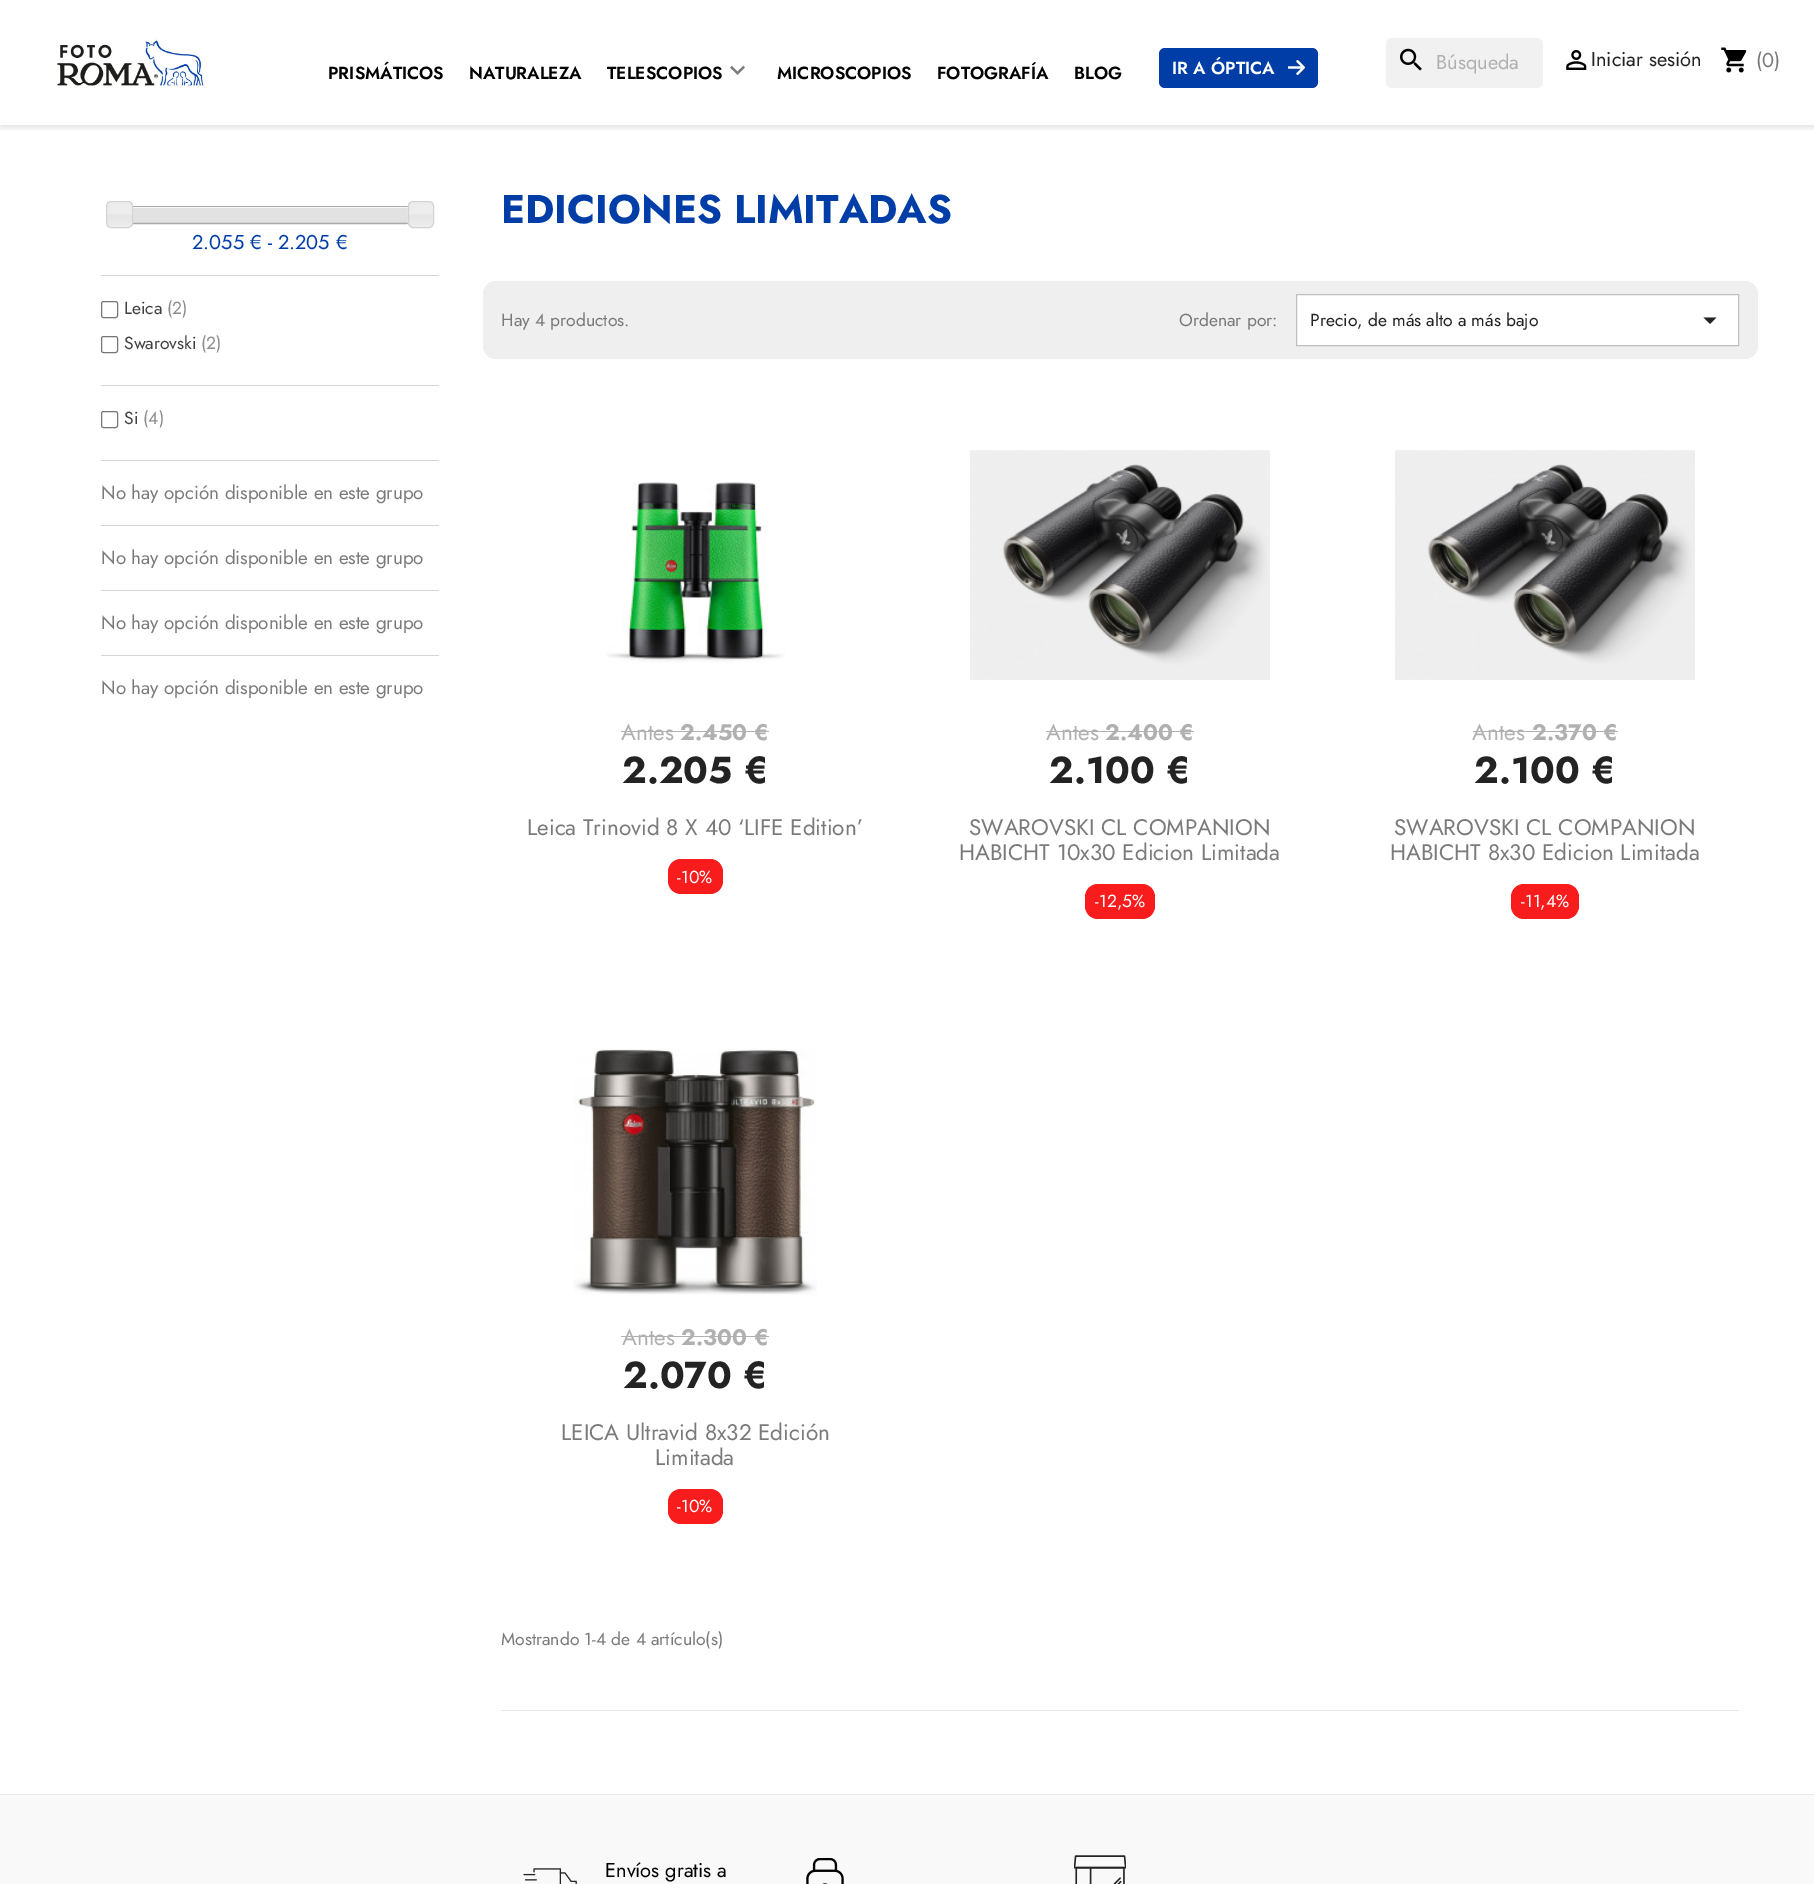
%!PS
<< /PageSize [1814 1884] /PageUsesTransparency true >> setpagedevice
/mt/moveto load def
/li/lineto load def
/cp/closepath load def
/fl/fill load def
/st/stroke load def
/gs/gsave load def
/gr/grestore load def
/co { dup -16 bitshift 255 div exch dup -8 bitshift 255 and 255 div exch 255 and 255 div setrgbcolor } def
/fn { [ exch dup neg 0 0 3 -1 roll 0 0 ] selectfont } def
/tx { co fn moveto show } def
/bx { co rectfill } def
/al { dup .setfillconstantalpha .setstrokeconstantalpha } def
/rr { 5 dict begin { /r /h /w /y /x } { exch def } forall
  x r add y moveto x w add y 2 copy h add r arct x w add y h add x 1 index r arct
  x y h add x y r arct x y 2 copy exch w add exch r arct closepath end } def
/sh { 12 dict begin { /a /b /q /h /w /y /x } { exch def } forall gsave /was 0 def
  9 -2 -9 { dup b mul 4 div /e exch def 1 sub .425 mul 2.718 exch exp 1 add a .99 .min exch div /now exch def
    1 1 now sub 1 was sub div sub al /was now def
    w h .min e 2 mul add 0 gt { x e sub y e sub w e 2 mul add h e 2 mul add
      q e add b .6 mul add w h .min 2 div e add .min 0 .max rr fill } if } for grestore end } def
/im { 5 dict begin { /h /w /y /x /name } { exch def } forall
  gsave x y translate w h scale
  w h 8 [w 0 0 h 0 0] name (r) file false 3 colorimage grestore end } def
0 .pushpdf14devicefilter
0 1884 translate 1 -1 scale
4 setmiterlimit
0 0 1814 1884 16#FFFFFF bx
gs
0 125 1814 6 rectclip
16#000000 co
0 3 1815 125 0 3 .11 sh
gr
(media/1.raw) 57 38 148 49 im
(media/2.raw) 730 65 15 10 im
16#003DA6 co
1159 48 159 40 6 rr fl
(media/3.raw) 1288 60 17 15 im
16#F1F1F1 co
1386 38 157 50 6 rr fl
(media/4.raw) 1400 48 22 23 im
(media/5.raw) 1566 50 21 20 im
(media/6.raw) 1721 47 26 26 im
16#AAAAAA co
119.5 206.5 303 17 rectstroke
(media/7.raw) 107 202 25 25 im
16#D3D3D3 co
106.5 201.5 26 26 4.5 rr st
133 222 275 1 16#CCCCCC bx
(media/8.raw) 133 207 275 16 im
(media/9.raw) 407 202 26 25 im
16#D3D3D3 co
408.5 201.5 25 26 4.5 rr st
101 275 338 1 16#D6D4D4 bx
16#767676 co
101.5 301.5 16 16 2 rr st
101.5 336.5 16 16 2 rr st
101 385 338 1 16#D6D4D4 bx
16#767676 co
101.5 411.5 16 16 2 rr st
101 460 338 1 16#D6D4D4 bx
101 525 338 1 16#D6D4D4 bx
101 590 338 1 16#D6D4D4 bx
101 655 338 1 16#D6D4D4 bx
16#EFEFEF co
483 281 1275 78 13 rr fl
16#FFFFFF co
1296.5 294.5 mt 1738.5 294.5 li 1738.5 345.5 li 1296.5 345.5 li cp gs fl gr
16#BFBFBF co
st
16#232323 co
1703.5 317.5 mt 1716.5 317.5 li 1710 324 li cp fl
(media/10.raw) 606 482 179 181 im
621 731 59 1 16#B0B0B0 bx
680 731 89 1 16#B0B0B0 bx
16#F81C1C co
668 859 55 35 13 rr fl
(media/11.raw) 970 450 300 230 im
1046 731 59 1 16#B0B0B0 bx
1105 731 89 1 16#B0B0B0 bx
16#F81C1C co
1085 884 70 35 13 rr fl
(media/12.raw) 1395 450 300 230 im
1473 731 58 1 16#B0B0B0 bx
1531 731 87 1 16#B0B0B0 bx
16#F81C1C co
1511 884 68 35 13 rr fl
(media/13.raw) 573 1049 244 246 im
621 1336 60 1 16#B0B0B0 bx
681 1336 88 1 16#B0B0B0 bx
16#F81C1C co
668 1489 55 35 13 rr fl
501 1710 1238 1 16#E6E6E6 bx
0 1795 1814 89 16#F9F9F9 bx
0 1794 1814 1 16#ECECEC bx
(media/14.raw) 523 1868 54 16 im
(media/15.raw) 806 1858 38 26 im
(media/16.raw) 1074 1855 52 29 im
(PRISMÁTICOS) 328 79 /Jost-SemiBold 17.5 16#000000 tx
(NATURALEZA) 469 79 /Jost-SemiBold 17.5 16#000000 tx
(TELESCOPIOS) 607 79 /Jost-SemiBold 17.5 16#000000 tx
(MICROSCOPIOS) 777 79 /Jost-SemiBold 17.5 16#000000 tx
(FOTOGRAFÍA) 937 79 /Jost-SemiBold 17.5 16#000000 tx
(BLOG) 1074 79 /Jost-SemiBold 17.5 16#000000 tx
(IR A ÓPTICA) 1172 74 /Jost-SemiBold 17.5 16#FFFFFF tx
(Búsqueda) 1436 69 /Jost-Regular 20 16#B0B0B0 tx
(Iniciar sesión) 1591 66 /Jost-Regular 20 16#232323 tx
(\(0\)) 1756 67 /Jost-Regular 20 16#7A7A7A tx
(2.055 € - 2.205 €) 192 249 /Jost-Regular 20 16#003DA6 tx
(Leica) 124 314 /Jost-Regular 17.5 16#414141 tx
(\(2\)) 167 314 /Jost-Regular 17.5 16#8D8D8D tx
(Swarovski) 124 349 /Jost-Regular 17.5 16#414141 tx
(\(2\)) 201 349 /Jost-Regular 17.5 16#8D8D8D tx
(Si) 124 424 /Jost-Regular 17.5 16#414141 tx
(\(4\)) 143 424 /Jost-Regular 17.5 16#8D8D8D tx
(No hay opción disponible en este grupo) 101 499 /Jost-Regular 18.75 16#7A7A7A tx
(No hay opción disponible en este grupo) 101 564 /Jost-Regular 18.75 16#7A7A7A tx
(No hay opción disponible en este grupo) 101 629 /Jost-Regular 18.75 16#7A7A7A tx
(No hay opción disponible en este grupo) 101 694 /Jost-Regular 18.75 16#7A7A7A tx
(EDICIONES LIMITADAS) 501 223 /Jost-Bold 40 16#003DA6 tx
(Hay 4 productos.) 501 326 /Jost-Regular 17.5 16#7A7A7A tx
(Ordenar por:) 1179 326 /Jost-Regular 17.5 16#7A7A7A tx
(Precio, de más alto a más bajo) 1310 326 /Jost-Regular 17.5 16#232323 tx
(Antes) 621 740 /Jost-Regular 22.5 16#B0B0B0 tx
(2.450 €) 680 740 /Jost-Bold 22.5 16#B0B0B0 tx
(2.205 €) 622 783 /Jost-Bold 37.5 16#232323 tx
(Leica Trinovid 8 X 40 ‘LIFE Edition’) 527 835 /Jost-Regular 22.5 16#7A7A7A tx
(-10%) 677 883 /Jost-Regular 17.5 16#FFFFFF tx
(Antes) 1046 740 /Jost-Regular 22.5 16#B0B0B0 tx
(2.400 €) 1105 740 /Jost-Bold 22.5 16#B0B0B0 tx
(2.100 €) 1049 783 /Jost-Bold 37.5 16#232323 tx
(SWAROVSKI CL COMPANION) 969 835 /Jost-Regular 22.5 16#7A7A7A tx
(HABICHT 10x30 Edicion Limitada) 959 860 /Jost-Regular 22.5 16#7A7A7A tx
(-12,5%) 1095 907 /Jost-Regular 17.5 16#FFFFFF tx
(Antes) 1472 740 /Jost-Regular 22.5 16#B0B0B0 tx
(2.370 €) 1532 740 /Jost-Bold 22.5 16#B0B0B0 tx
(2.100 €) 1474 783 /Jost-Bold 37.5 16#232323 tx
(SWAROVSKI CL COMPANION) 1394 835 /Jost-Regular 22.5 16#7A7A7A tx
(HABICHT 8x30 Edicion Limitada) 1390 860 /Jost-Regular 22.5 16#7A7A7A tx
(-11,4%) 1521 907 /Jost-Regular 17.5 16#FFFFFF tx
(Antes) 622 1345 /Jost-Regular 22.5 16#B0B0B0 tx
(2.300 €) 681 1345 /Jost-Bold 22.5 16#B0B0B0 tx
(2.070 €) 623 1388 /Jost-Bold 37.5 16#232323 tx
(LEICA Ultravid 8x32 Edición) 561 1440 /Jost-Regular 22.5 16#7A7A7A tx
(Limitada) 655 1465 /Jost-Regular 22.5 16#7A7A7A tx
(-10%) 677 1512 /Jost-Regular 17.5 16#FFFFFF tx
(Mostrando 1-4 de 4 artículo\(s\)) 501 1645 /Jost-Regular 17.5 16#7A7A7A tx
(Envíos gratis a) 605 1877 /Jost-Regular 20 16#000000 tx
.poppdf14devicefilter showpage
